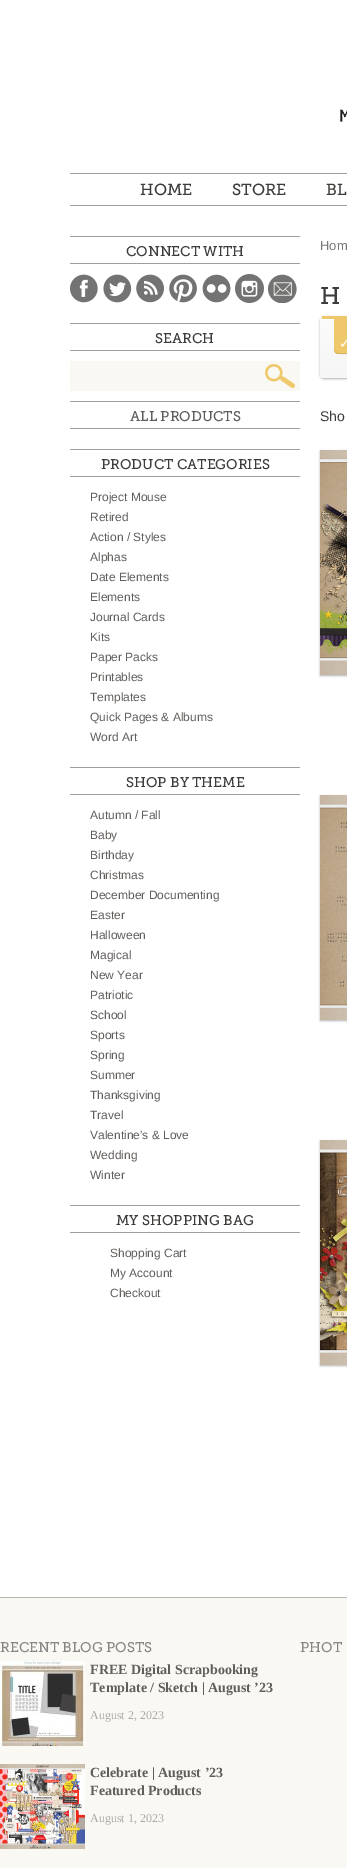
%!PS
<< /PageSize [347 1868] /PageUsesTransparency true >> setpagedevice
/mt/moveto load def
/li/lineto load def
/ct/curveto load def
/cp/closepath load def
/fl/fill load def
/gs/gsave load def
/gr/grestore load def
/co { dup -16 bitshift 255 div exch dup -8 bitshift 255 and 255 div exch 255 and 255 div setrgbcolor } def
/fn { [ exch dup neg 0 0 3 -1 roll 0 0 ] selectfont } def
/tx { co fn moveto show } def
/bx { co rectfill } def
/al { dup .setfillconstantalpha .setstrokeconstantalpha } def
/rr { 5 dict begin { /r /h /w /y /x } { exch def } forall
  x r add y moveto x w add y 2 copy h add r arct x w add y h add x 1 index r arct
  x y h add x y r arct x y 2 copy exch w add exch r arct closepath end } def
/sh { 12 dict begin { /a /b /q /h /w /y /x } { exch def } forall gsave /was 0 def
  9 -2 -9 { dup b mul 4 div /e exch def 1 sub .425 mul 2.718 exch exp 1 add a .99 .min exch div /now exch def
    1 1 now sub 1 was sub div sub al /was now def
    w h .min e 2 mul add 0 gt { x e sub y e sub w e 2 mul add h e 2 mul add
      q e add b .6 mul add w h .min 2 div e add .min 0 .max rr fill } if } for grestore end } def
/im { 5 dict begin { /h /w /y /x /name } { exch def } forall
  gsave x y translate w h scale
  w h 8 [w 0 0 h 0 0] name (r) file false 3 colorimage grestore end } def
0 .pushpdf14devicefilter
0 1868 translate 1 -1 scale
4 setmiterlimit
0 0 347 1868 16#FAF8F2 bx
0 0 347 1597 16#FFFFFF bx
(media/1.raw) 340 109 7 13 im
70 173 277 1 16#9E9D9C bx
70 205 277 1 16#9E9D9C bx
70 236 230 1 16#9E9D9C bx
70 263 230 1 16#9E9D9C bx
(media/2.raw) 70 274 28 29 im
(media/3.raw) 103 274 29 29 im
(media/4.raw) 136 274 28 29 im
(media/5.raw) 169 274 28 29 im
(media/6.raw) 202 274 29 29 im
(media/7.raw) 235 274 29 29 im
(media/8.raw) 268 274 29 29 im
70 323 230 1 16#9E9D9C bx
70 350 230 1 16#9E9D9C bx
70 361 230 30 16#FAF8F2 bx
(media/9.raw) 265 364 30 24 im
70 401 230 1 16#9E9D9C bx
70 428 230 1 16#9E9D9C bx
70 449 230 1 16#9E9D9C bx
70 476 230 1 16#9E9D9C bx
70 767 230 1 16#9E9D9C bx
70 794 230 1 16#9E9D9C bx
70 1205 230 1 16#9E9D9C bx
70 1232 230 1 16#9E9D9C bx
16#000000 co
320 317 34 62 4 1 .3 sh
gs
320 316 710 62 4 rr clip newpath
gs 320 316 mt 322 316 li 322 319 li 320 319 li cp clip newpath
<< /ShadingType 2 /ColorSpace /DeviceRGB /Coords [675 260 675 319] /Extend [true true] /Function << /FunctionType 2 /Domain [0 1] /C0 [.988 .984 .988] /C1 [.969 .965 .969] /N 1 >> >> shfill gr
gs 320 319 mt 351 319 li 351 374 li 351 376 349 378 347 378 ct 324 378 li 322 378 320 376 320 374 ct cp clip newpath
<< /ShadingType 2 /ColorSpace /DeviceRGB /Coords [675 319 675 378] /Extend [true true] /Function << /FunctionType 2 /Domain [0 1] /C0 [.988 .984 .988] /C1 [.969 .965 .969] /N 1 >> >> shfill gr
gr
16#FFFFFF co
324 320 mt 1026 320 li 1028 320 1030 320 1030 321 ct 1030 319 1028 319 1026 319 ct 324 319 li 322 319 320 319 320 321 ct 320 320 322 320 324 320 ct cp fl
322 316 25 3 16#EEC86A bx
334 319 mt 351 319 li 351 350 li 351 352 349 354 347 354 ct 338 354 li 336 354 334 352 334 350 ct cp fl
0.1 al
16#000000 co
334 349 mt 334 355.5 339.5 354 344.5 354 ct 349.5 354 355 355.5 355 349 ct 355 354 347.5 353 344.5 353 ct 341.5 353 334 354 334 349 ct cp fl
1 al
320 451 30 225 0 1 .3 sh
(media/10.raw) 320 450 27 225 im
320 796 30 225 0 1 .3 sh
(media/11.raw) 320 795 27 225 im
320 1141 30 225 0 1 .3 sh
(media/12.raw) 320 1140 27 225 im
0 1597 347 1 16#B7B7B7 bx
(media/13.raw) 0 1661 85 85 im
(media/14.raw) 0 1764 85 85 im
(HOME) 140 195 /MuseoSlab-Regular 16 16#3E3C3A tx
(STORE) 232 195 /MuseoSlab-Regular 16 16#3E3C3A tx
(BL) 326 195 /MuseoSlab-Regular 16 16#3E3C3A tx
(CONNECT WITH) 126 256 /MuseoSlab-Regular 14 16#3E3C3A tx
(SEARCH) 155 343 /MuseoSlab-Regular 14 16#3E3C3A tx
(ALL PRODUCTS) 130 421 /MuseoSlab-Regular 14 16#605D5B tx
(PRODUCT CATEGORIES) 101 469 /MuseoSlab-Regular 14 16#3E3C3A tx
(Project Mouse) 90 501 /LiberationSans-Regular 12 16#605D5B tx
(Retired) 90 521 /LiberationSans-Regular 12 16#605D5B tx
(Action / Styles) 90 541 /LiberationSans-Regular 12 16#605D5B tx
(Alphas) 90 561 /LiberationSans-Regular 12 16#605D5B tx
(Date Elements) 90 581 /LiberationSans-Regular 12 16#605D5B tx
(Elements) 90 601 /LiberationSans-Regular 12 16#605D5B tx
(Journal Cards) 90 621 /LiberationSans-Regular 12 16#605D5B tx
(Kits) 90 641 /LiberationSans-Regular 12 16#605D5B tx
(Paper Packs) 90 661 /LiberationSans-Regular 12 16#605D5B tx
(Printables) 90 681 /LiberationSans-Regular 12 16#605D5B tx
(Templates) 90 701 /LiberationSans-Regular 12 16#605D5B tx
(Quick Pages & Albums) 90 721 /LiberationSans-Regular 12 16#605D5B tx
(Word Art) 90 741 /LiberationSans-Regular 12 16#605D5B tx
(SHOP BY THEME) 126 787 /MuseoSlab-Regular 14 16#3E3C3A tx
(Autumn / Fall) 90 819 /LiberationSans-Regular 12 16#605D5B tx
(Baby) 90 839 /LiberationSans-Regular 12 16#605D5B tx
(Birthday) 90 859 /LiberationSans-Regular 12 16#605D5B tx
(Christmas) 90 879 /LiberationSans-Regular 12 16#605D5B tx
(December Documenting) 90 899 /LiberationSans-Regular 12 16#605D5B tx
(Easter) 90 919 /LiberationSans-Regular 12 16#605D5B tx
(Halloween) 90 939 /LiberationSans-Regular 12 16#605D5B tx
(Magical) 90 959 /LiberationSans-Regular 12 16#605D5B tx
(New Year) 90 979 /LiberationSans-Regular 12 16#605D5B tx
(Patriotic) 90 999 /LiberationSans-Regular 12 16#605D5B tx
(School) 90 1019 /LiberationSans-Regular 12 16#605D5B tx
(Sports) 90 1039 /LiberationSans-Regular 12 16#605D5B tx
(Spring) 90 1059 /LiberationSans-Regular 12 16#605D5B tx
(Summer) 90 1079 /LiberationSans-Regular 12 16#605D5B tx
(Thanksgiving) 90 1099 /LiberationSans-Regular 12 16#605D5B tx
(Travel) 90 1119 /LiberationSans-Regular 12 16#605D5B tx
(Valentine's & Love) 90 1139 /LiberationSans-Regular 12 16#605D5B tx
(Wedding) 90 1159 /LiberationSans-Regular 12 16#605D5B tx
(Winter) 90 1179 /LiberationSans-Regular 12 16#605D5B tx
(MY SHOPPING BAG) 116 1225 /MuseoSlab-Regular 14 16#3E3C3A tx
(Shopping Cart) 110 1257 /LiberationSans-Regular 12 16#605D5B tx
(My Account) 110 1277 /LiberationSans-Regular 12 16#605D5B tx
(Checkout) 110 1297 /LiberationSans-Regular 12 16#605D5B tx
(Hom) 320 250 /LiberationSans-Regular 13 16#777777 tx
(H) 320 304 /MuseoSlab-Regular 24 16#3E3C3A tx
(✓) 339 348 /DejaVuSans-Regular 14 16#FFFFFF tx
(Sho) 320 421 /LiberationSans-Regular 14 16#3E3C3A tx
(RECENT BLOG POSTS) 0 1652 /MuseoSlab-Regular 14 16#878787 tx
(FREE Digital Scrapbooking) 90 1674 /LiberationSerif-Bold 14 16#605D5B tx
(Template / Sketch | August ’23) 90 1692 /LiberationSerif-Bold 14 16#605D5B tx
(August 2, 2023) 90 1719 /LiberationSerif-Regular 12 16#A9A9A9 tx
(Celebrate | August ’23) 90 1777 /LiberationSerif-Bold 14 16#605D5B tx
(Featured Products) 90 1795 /LiberationSerif-Bold 14 16#605D5B tx
(August 1, 2023) 90 1822 /LiberationSerif-Regular 12 16#A9A9A9 tx
(PHOT) 300 1652 /MuseoSlab-Regular 14 16#878787 tx
.poppdf14devicefilter showpage
